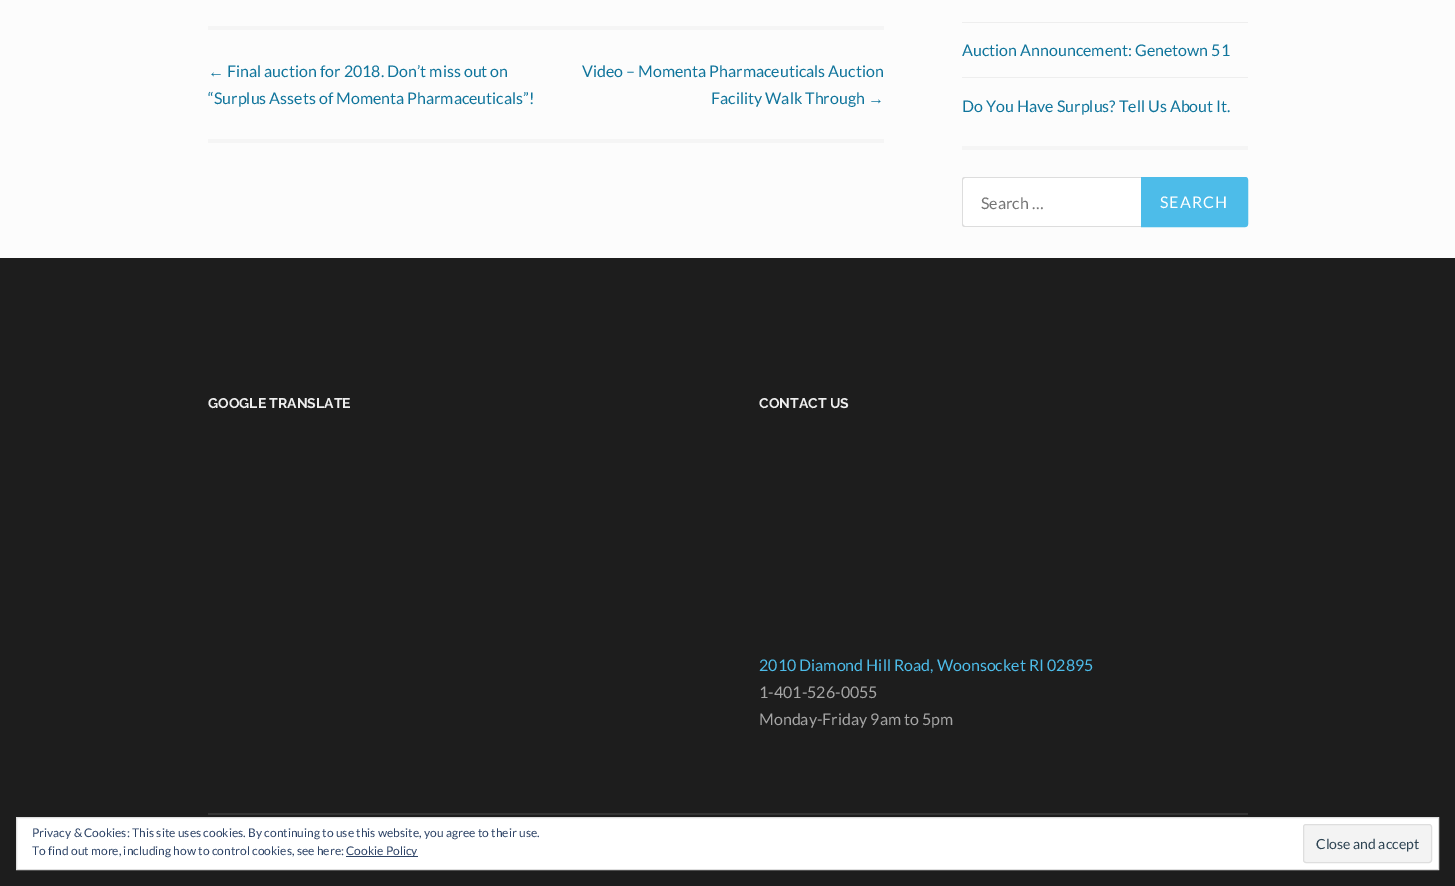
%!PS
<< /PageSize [1455 886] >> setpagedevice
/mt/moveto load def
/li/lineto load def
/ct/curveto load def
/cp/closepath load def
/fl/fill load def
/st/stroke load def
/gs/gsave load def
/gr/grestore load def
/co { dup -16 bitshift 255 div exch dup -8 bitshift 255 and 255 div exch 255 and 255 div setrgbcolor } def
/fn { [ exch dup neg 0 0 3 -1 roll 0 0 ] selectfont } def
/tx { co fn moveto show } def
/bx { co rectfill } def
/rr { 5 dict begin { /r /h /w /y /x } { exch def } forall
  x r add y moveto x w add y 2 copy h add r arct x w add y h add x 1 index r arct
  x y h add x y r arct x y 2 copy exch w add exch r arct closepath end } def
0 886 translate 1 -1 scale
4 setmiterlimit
0 0 1455 886 16#FCFCFC bx
208 26 676 4 16#F5F5F5 bx
208 139 676 4 16#F5F5F5 bx
962 146 286 4 16#F5F5F5 bx
962 22 286 1 16#EEEEEE bx
962 77 286 1 16#EEEEEE bx
16#FFFFFF co
965 177 mt 1245 177 li 1245 227 li 965 227 li 963.5 227 962 225.5 962 224 ct 962 180 li 962 178.5 963.5 177 965 177 ct cp fl
16#DDDDDD co
965 177 mt 1245 177 li 1245 227 li 965 227 li 963 227 962 226 962 224 ct 962 180 li 962 178 963 177 965 177 ct cp 965 178 mt 1245 178 li 1245 226 li 965 226 li 964 226 963 225 963 224 ct 963 180 li 963 179 964 178 965 178 ct cp eofill
16#4DBCE9 co
1141.5 177.5 mt 1245 177.5 li 1246.5 177.5 1247.5 178.5 1247.5 180 ct 1247.5 224 li 1247.5 225.5 1246.5 226.5 1245 226.5 ct 1141.5 226.5 li cp gs fl gr
st
0 258 1455 628 16#1D1D1D bx
208 813 1040 2 16#343434 bx
16#FFFFFF co
16.5 817.5 mt 1438.5 817.5 li 1438.5 869.5 li 16.5 869.5 li cp gs fl gr
16#DEDEDE co
st
346 856 72 1 16#2E4467 bx
16#F3F3F3 co
1303.5 824.5 128 38 2.5 rr gs fl gr
16#DEDEDE co
st
(←) 208 77 /LiberationSans-Regular 16 16#10759C tx
(Final auction for 2018. Don’t miss out on) 227 77 /Lato-Regular 16 16#10759C tx
(“Surplus Assets of Momenta Pharmaceuticals”!) 208 104 /Lato-Regular 16 16#10759C tx
(Video – Momenta Pharmaceuticals Auction) 582 77 /Lato-Regular 16 16#10759C tx
(Facility Walk Through) 711 104 /Lato-Regular 16 16#10759C tx
(→) 868 104 /LiberationSans-Regular 16 16#10759C tx
(Auction Announcement: Genetown 51) 962 56 /Lato-Regular 16 16#10759C tx
(Do You Have Surplus? Tell Us About It.) 962 112 /Lato-Regular 16 16#10759C tx
(Search …) 981 209 /Lato-Regular 16 16#757575 tx
16#FFFFFF co
1160 208 mt 1 0 (SEARCH) ashow
(GOOGLE TRANSLATE) 208 408 /Raleway-Bold 14 16#EEEEEE tx
(CONTACT US) 759 408 /Raleway-Bold 14 16#EEEEEE tx
(2010 Diamond Hill Road, Woonsocket RI 02895) 759 671 /Lato-Regular 16 16#4DBCE9 tx
(1-401-526-0055) 759 698 /Lato-Regular 16 16#A5A5A5 tx
(Monday-Friday 9am to 5pm) 759 725 /Lato-Regular 16 16#A5A5A5 tx
(Privacy & Cookies: This site uses cookies. By continuing to use this website, you agree to their use.) 32 837 /Lato-Regular 12 16#2E4467 tx
(To find out more, including how to control cookies, see here:) 32 855 /Lato-Regular 12 16#2E4467 tx
(Cookie Policy) 346 855 /Lato-Regular 12 16#2E4467 tx
(Close and accept) 1316 849 /Lato-Regular 14 16#2E4453 tx
showpage
